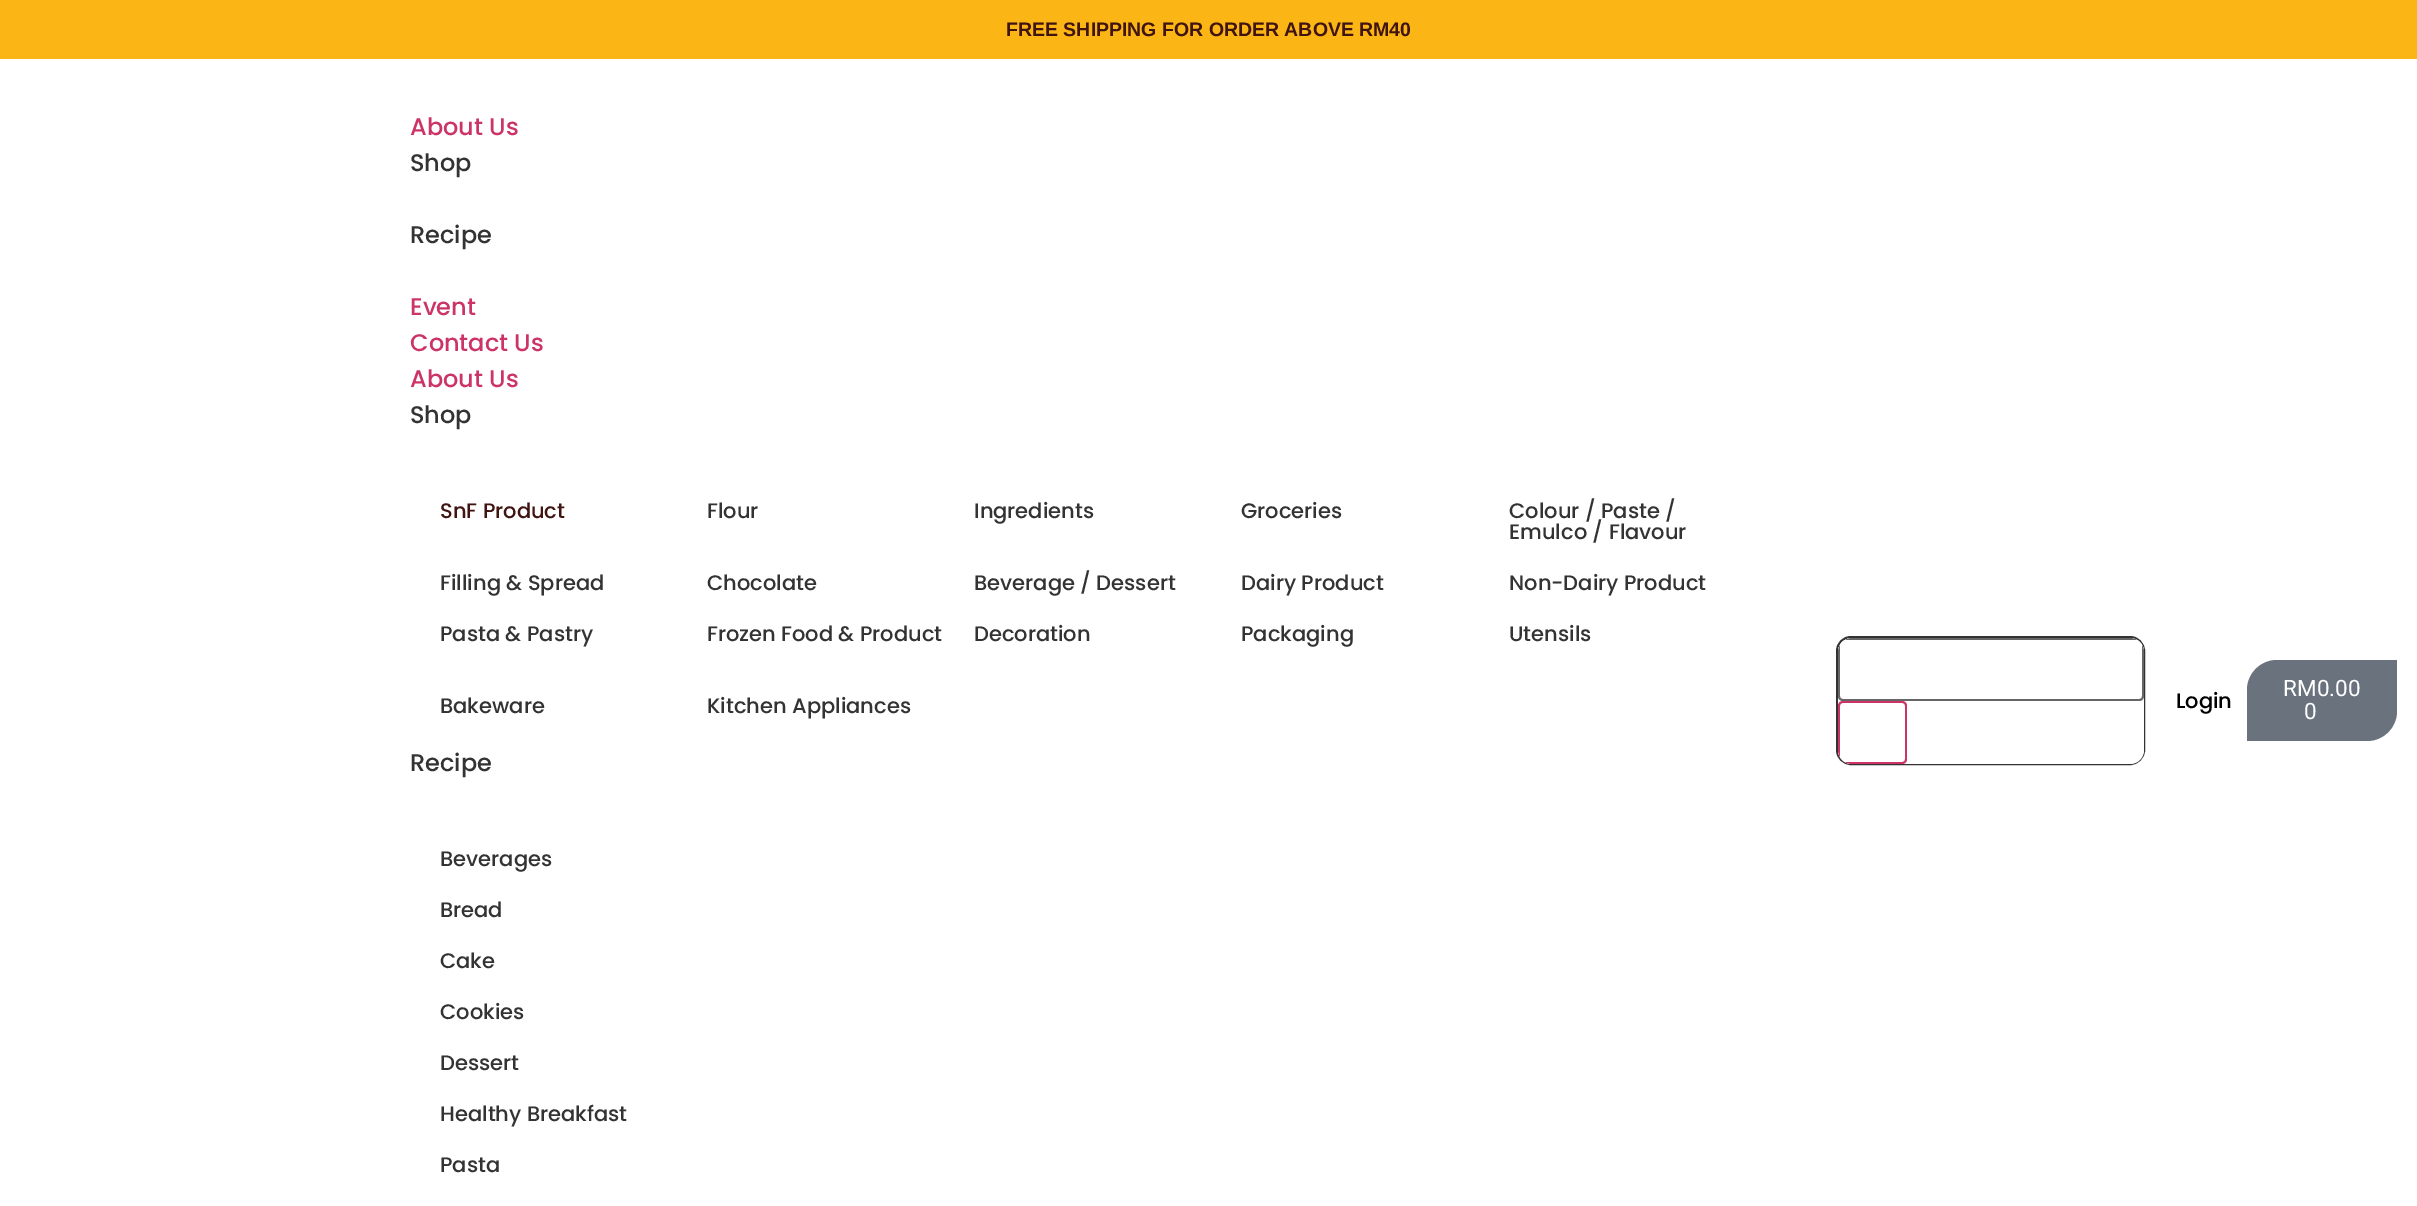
%!PS
<< /PageSize [2417 1206] >> setpagedevice
/mt/moveto load def
/li/lineto load def
/ct/curveto load def
/cp/closepath load def
/fl/fill load def
/st/stroke load def
/lw/setlinewidth load def
/co { dup -16 bitshift 255 div exch dup -8 bitshift 255 and 255 div exch 255 and 255 div setrgbcolor } def
/fn { [ exch dup neg 0 0 3 -1 roll 0 0 ] selectfont } def
/tx { co fn moveto show } def
/bx { co rectfill } def
/rr { 5 dict begin { /r /h /w /y /x } { exch def } forall
  x r add y moveto x w add y 2 copy h add r arct x w add y h add x 1 index r arct
  x y h add x y r arct x y 2 copy exch w add exch r arct closepath end } def
0 1206 translate 1 -1 scale
4 setmiterlimit
0 0 2417 1206 16#FFFFFF bx
0 0 2417 59 16#FBB615 bx
16#333333 co
2 lw
1837 637 307 127 14 rr st
16#FFFFFF co
1838 638 306 126 14 rr fl
1852 638 mt 2130 638 li 2137.5 638 2144 644.5 2144 652 ct 2144 696 li 2144 699 2142 701 2139 701 ct 1843 701 li 1840 701 1838 699 1838 696 ct 1838 652 li 1838 644.5 1844.5 638 1852 638 ct cp fl
16#666666 co
1838 652 mt 1838 696 li 1838 699 1840 701 1843 701 ct 2139 701 li 2142 701 2144 699 2144 696 ct 2144 652 li 2144 649 2143 647 2142 645 ct 2142 696 li 2142 698 2141 699 2139 699 ct 1843 699 li 1841 699 1840 698 1840 696 ct 1840 645 li 1839 647 1838 649 1838 652 ct cp 1852 638 mt 1849 638 1847 639 1845 640 ct 2137 640 li 2135 639 2133 638 2130 638 ct cp eofill
16#FFFFFF co
1843 701 mt 1902 701 li 1905 701 1907 703 1907 706 ct 1907 759 li 1907 762 1905 764 1902 764 ct 1852 764 li 1844.5 764 1838 757.5 1838 750 ct 1838 706 li 1838 703 1840 701 1843 701 ct cp fl
16#CC3366 co
1843 701 mt 1840 701 1838 703 1838 706 ct 1838 750 li 1838 753 1839 755 1840 757 ct 1840 706 li 1840 704 1841 703 1843 703 ct 1902 703 li 1904 703 1905 704 1905 706 ct 1905 759 li 1905 761 1904 762 1902 762 ct 1845 762 li 1847 763 1849 764 1852 764 ct 1902 764 li 1905 764 1907 762 1907 759 ct 1907 706 li 1907 703 1905 701 1902 701 ct cp fl
16#69727D co
2277 660 mt 2397 660 li 2397 711 li 2397 727.5 2383.5 741 2367 741 ct 2247 741 li 2247 690 li 2247 673.5 2260.5 660 2277 660 ct cp fl
(FREE SHIPPING FOR ORDER ABOVE RM40) 1006 36 /LiberationSans-Bold 19.5 16#401410 tx
(About Us) 410 135 /Poppins-Medium 24 16#CC3366 tx
(Shop) 410 171 /Poppins-Medium 24 16#333333 tx
(Recipe) 410 243 /Poppins-Medium 24 16#333333 tx
(Event) 410 315 /Poppins-Medium 24 16#CC3366 tx
(Contact Us) 410 351 /Poppins-Medium 24 16#CC3366 tx
(About Us) 410 387 /Poppins-Medium 24 16#CC3366 tx
(Shop) 410 423 /Poppins-Medium 24 16#333333 tx
(SnF Product) 440 518 /Poppins-Medium 21 16#401410 tx
(Flour) 707 518 /Poppins-Medium 21 16#333333 tx
(Ingredients) 974 518 /Poppins-Medium 21 16#333333 tx
(Groceries) 1241 518 /Poppins-Medium 21 16#333333 tx
(Colour / Paste /) 1509 518 /Poppins-Medium 21 16#333333 tx
(Emulco / Flavour) 1509 539 /Poppins-Medium 21 16#333333 tx
(Filling & Spread) 440 590 /Poppins-Medium 21 16#333333 tx
(Chocolate) 707 590 /Poppins-Medium 21 16#333333 tx
(Beverage / Dessert) 974 590 /Poppins-Medium 21 16#333333 tx
(Dairy Product) 1241 590 /Poppins-Medium 21 16#333333 tx
(Non-Dairy Product) 1509 590 /Poppins-Medium 21 16#333333 tx
(Pasta & Pastry) 440 641 /Poppins-Medium 21 16#333333 tx
(Frozen Food & Product) 707 641 /Poppins-Medium 21 16#333333 tx
(Decoration) 974 641 /Poppins-Medium 21 16#333333 tx
(Packaging) 1241 641 /Poppins-Medium 21 16#333333 tx
(Utensils) 1509 641 /Poppins-Medium 21 16#333333 tx
(Bakeware) 440 713 /Poppins-Medium 21 16#333333 tx
(Kitchen Appliances) 707 713 /Poppins-Medium 21 16#333333 tx
(Recipe) 410 771 /Poppins-Medium 24 16#333333 tx
(Beverages) 440 866 /Poppins-Medium 21 16#333333 tx
(Bread) 440 917 /Poppins-Medium 21 16#333333 tx
(Cake) 440 968 /Poppins-Medium 21 16#333333 tx
(Cookies) 440 1019 /Poppins-Medium 21 16#333333 tx
(Dessert) 440 1070 /Poppins-Medium 21 16#333333 tx
(Healthy Breakfast) 440 1121 /Poppins-Medium 21 16#333333 tx
(Pasta) 440 1172 /Poppins-Medium 21 16#333333 tx
(Login) 2176 708 /Poppins-Medium 21 16#000000 tx
(RM0.00) 2283 696 /Roboto-Regular 22.5 16#FFFFFF tx
(0) 2304 719 /Roboto-Regular 22.5 16#FFFFFF tx
showpage
